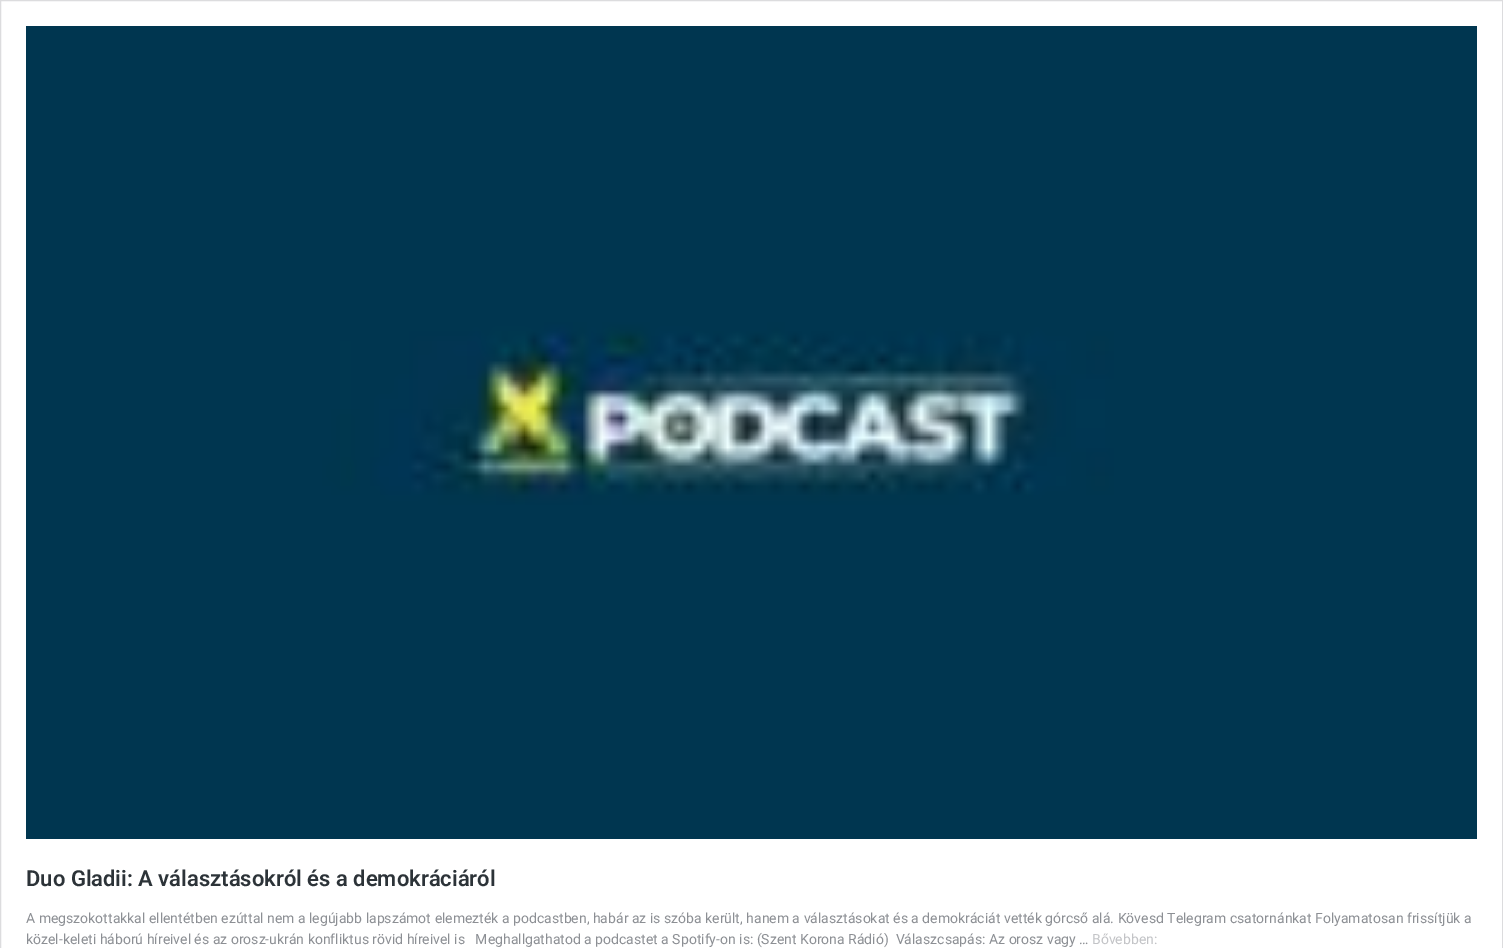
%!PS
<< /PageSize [1503 948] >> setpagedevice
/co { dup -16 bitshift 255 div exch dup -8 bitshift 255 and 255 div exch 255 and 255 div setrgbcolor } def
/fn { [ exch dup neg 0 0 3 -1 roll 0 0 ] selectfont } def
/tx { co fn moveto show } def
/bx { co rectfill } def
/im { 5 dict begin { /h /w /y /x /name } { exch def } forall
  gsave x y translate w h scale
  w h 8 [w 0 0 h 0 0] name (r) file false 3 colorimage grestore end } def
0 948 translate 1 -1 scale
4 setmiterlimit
0 0 1503 948 16#FFFFFF bx
16#DCDCDE co
.5 .5 1502 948 rectstroke
(media/1.raw) 26 26 1451 813 im
(Duo Gladii: A választásokról és a demokráciáról) 26 886 /Roboto-SemiBold 22 16#2C3338 tx
(A megszokottakkal ellentétben ezúttal nem a legújabb lapszámot elemezték a podcastben, habár az is szóba került, hanem a választásokat és a demokráciát vették górcső alá. Kövesd Telegram csatornánkat Folyamatosan frissítjük a) 26 923 /Roboto-Regular 14 16#8C8F94 tx
(közel-keleti háború híreivel és az orosz-ukrán konfliktus rövid híreivel is   Meghallgathatod a podcastet a Spotify-on is: \(Szent Korona Rádió\)  Válaszcsapás: Az orosz vagy …) 26 944 /Roboto-Regular 14 16#8C8F94 tx
(Bővebben:) 1092 944 /Roboto-Regular 14 16#C3C4C7 tx
showpage
